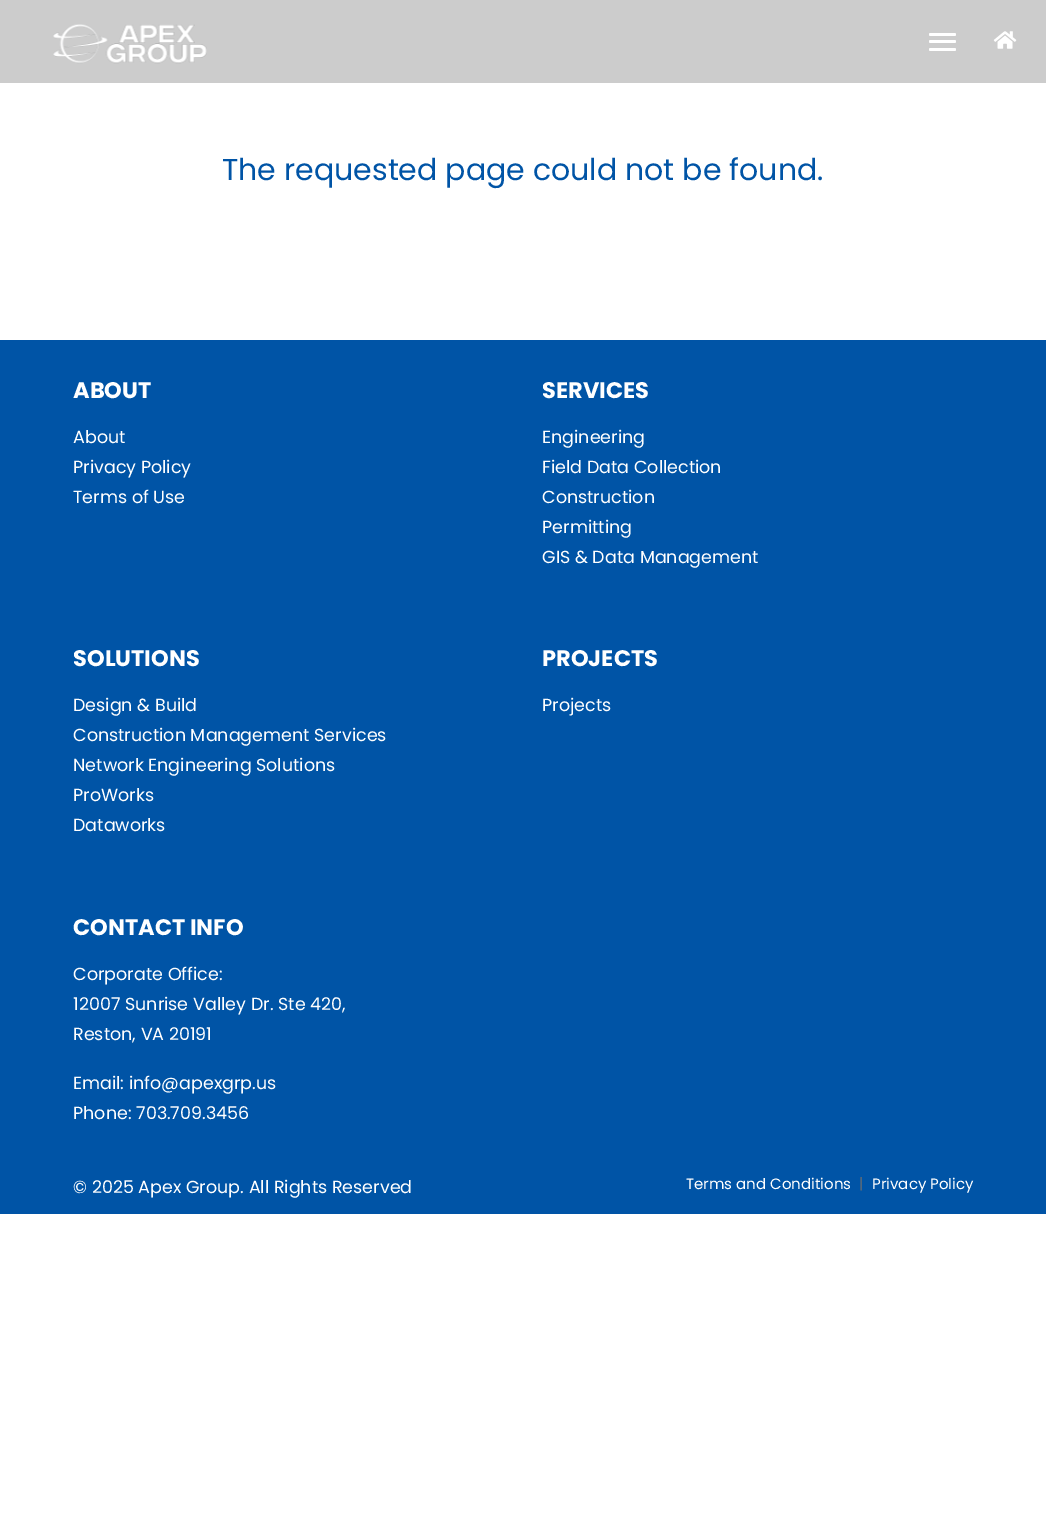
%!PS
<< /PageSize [1046 1530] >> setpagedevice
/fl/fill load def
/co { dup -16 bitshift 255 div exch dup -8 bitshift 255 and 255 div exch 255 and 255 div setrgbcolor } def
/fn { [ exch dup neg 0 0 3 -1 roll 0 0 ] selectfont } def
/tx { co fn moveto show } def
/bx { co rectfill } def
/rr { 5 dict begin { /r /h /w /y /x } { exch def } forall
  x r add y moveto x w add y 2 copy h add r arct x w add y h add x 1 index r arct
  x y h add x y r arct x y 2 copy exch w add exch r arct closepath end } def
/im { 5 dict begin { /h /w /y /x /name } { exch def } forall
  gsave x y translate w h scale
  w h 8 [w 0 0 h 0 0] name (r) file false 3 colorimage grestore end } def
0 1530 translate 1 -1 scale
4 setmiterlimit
0 0 1046 1530 16#FFFFFF bx
0 0 1046 83 16#CCCCCC bx
(media/1.raw) 53 24 154 40 im
16#FFFFFF co
929 33 27 3 1.5 rr fl
929 40 27 3 1.5 rr fl
929 48 27 3 1.5 rr fl
(media/2.raw) 993 31 24 18 im
0 340 1046 874 16#0054A6 bx
(The requested page could not be found.) 222 180 /Poppins-Regular 30 16#0054A6 tx
(ABOUT) 73 398 /Poppins-Bold 22.5 16#FFFFFF tx
(About) 73 443 /Poppins-Regular 17.5 16#FFFFFF tx
(Privacy Policy) 73 473 /Poppins-Regular 17.5 16#FFFFFF tx
(Terms of Use) 73 503 /Poppins-Regular 17.5 16#FFFFFF tx
(SERVICES) 542 398 /Poppins-Bold 22.5 16#FFFFFF tx
(Engineering) 542 443 /Poppins-Regular 17.5 16#FFFFFF tx
(Field Data Collection) 542 473 /Poppins-Regular 17.5 16#FFFFFF tx
(Construction) 542 503 /Poppins-Regular 17.5 16#FFFFFF tx
(Permitting) 542 533 /Poppins-Regular 17.5 16#FFFFFF tx
(GIS & Data Management) 542 563 /Poppins-Regular 17.5 16#FFFFFF tx
(SOLUTIONS) 73 666 /Poppins-Bold 22.5 16#FFFFFF tx
(Design & Build) 73 711 /Poppins-Regular 17.5 16#FFFFFF tx
(Construction Management Services) 73 741 /Poppins-Regular 17.5 16#FFFFFF tx
(Network Engineering Solutions) 73 771 /Poppins-Regular 17.5 16#FFFFFF tx
(ProWorks) 73 801 /Poppins-Regular 17.5 16#FFFFFF tx
(Dataworks) 73 831 /Poppins-Regular 17.5 16#FFFFFF tx
(PROJECTS) 542 666 /Poppins-Bold 22.5 16#FFFFFF tx
(Projects) 542 711 /Poppins-Regular 17.5 16#FFFFFF tx
(CONTACT INFO) 73 935 /Poppins-Bold 22.5 16#FFFFFF tx
(Corporate Office:) 73 980 /Poppins-Regular 17.5 16#FFFFFF tx
(12007 Sunrise Valley Dr. Ste 420,) 73 1010 /Poppins-Regular 17.5 16#FFFFFF tx
(Reston, VA 20191) 73 1040 /Poppins-Regular 17.5 16#FFFFFF tx
(Email: info@apexgrp.us) 73 1089 /Poppins-Regular 17.5 16#FFFFFF tx
(Phone: 703.709.3456) 73 1119 /Poppins-Regular 17.5 16#FFFFFF tx
(© 2025 Apex Group. All Rights Reserved) 73 1193 /Poppins-Regular 17.5 16#FFFFFF tx
(Terms and Conditions) 686 1189 /Poppins-Regular 15 16#FFFFFF tx
(|) 859 1189 /Poppins-Regular 15 16#6F6F6F tx
(Privacy Policy) 872 1189 /Poppins-Regular 15 16#FFFFFF tx
showpage
